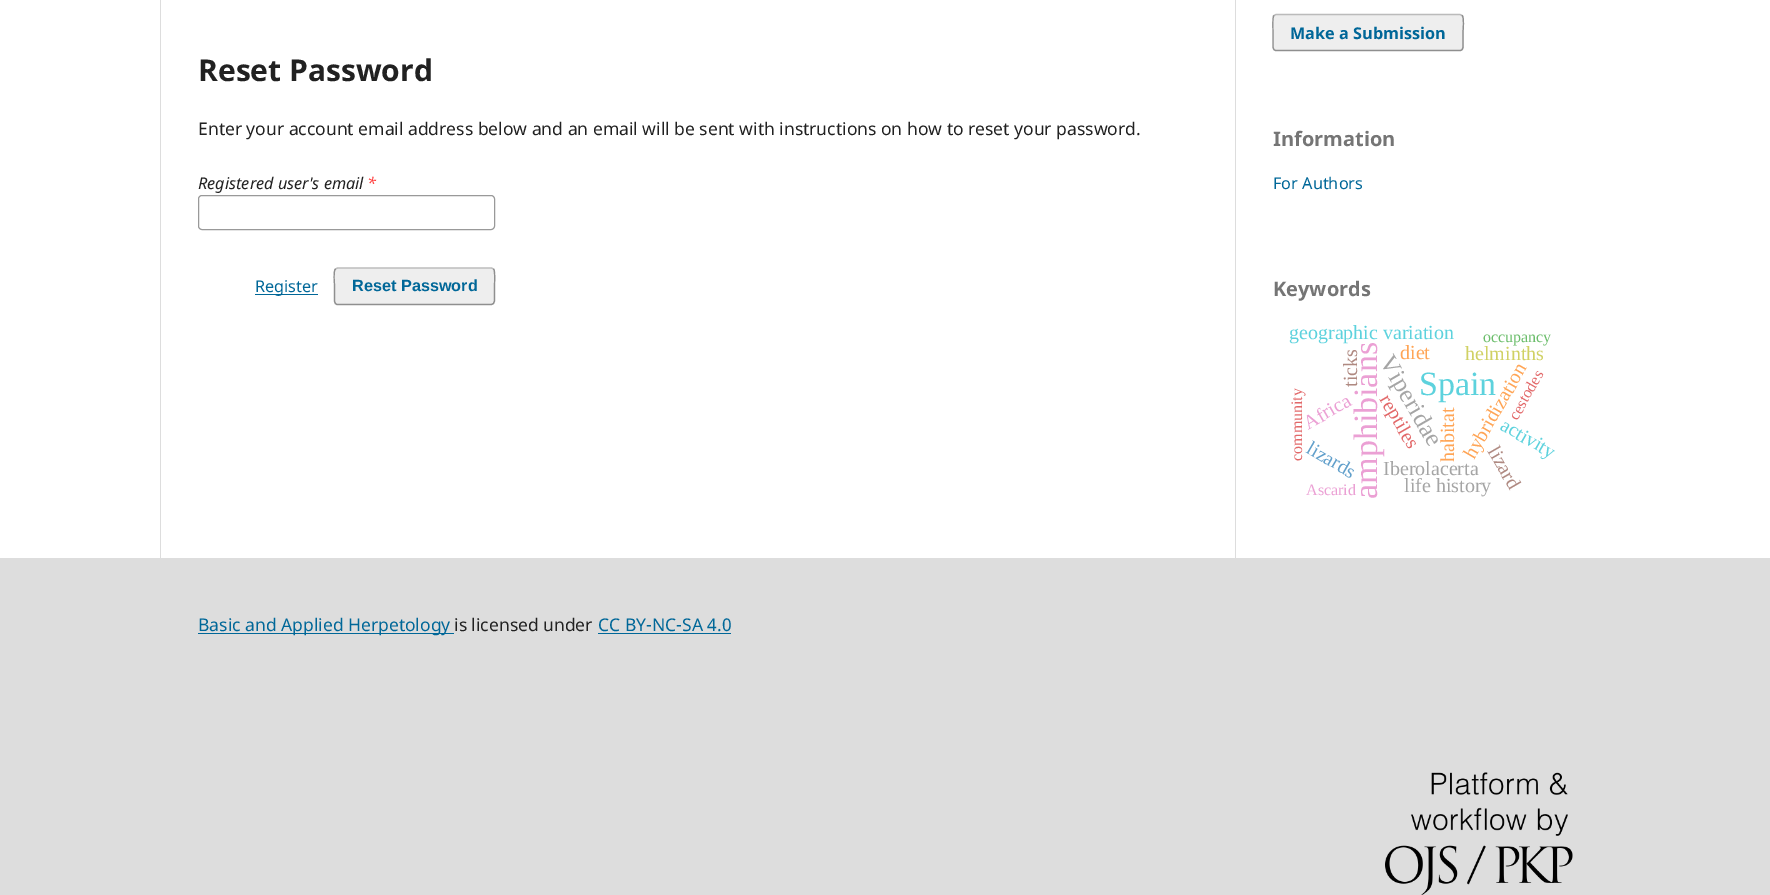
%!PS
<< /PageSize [1770 895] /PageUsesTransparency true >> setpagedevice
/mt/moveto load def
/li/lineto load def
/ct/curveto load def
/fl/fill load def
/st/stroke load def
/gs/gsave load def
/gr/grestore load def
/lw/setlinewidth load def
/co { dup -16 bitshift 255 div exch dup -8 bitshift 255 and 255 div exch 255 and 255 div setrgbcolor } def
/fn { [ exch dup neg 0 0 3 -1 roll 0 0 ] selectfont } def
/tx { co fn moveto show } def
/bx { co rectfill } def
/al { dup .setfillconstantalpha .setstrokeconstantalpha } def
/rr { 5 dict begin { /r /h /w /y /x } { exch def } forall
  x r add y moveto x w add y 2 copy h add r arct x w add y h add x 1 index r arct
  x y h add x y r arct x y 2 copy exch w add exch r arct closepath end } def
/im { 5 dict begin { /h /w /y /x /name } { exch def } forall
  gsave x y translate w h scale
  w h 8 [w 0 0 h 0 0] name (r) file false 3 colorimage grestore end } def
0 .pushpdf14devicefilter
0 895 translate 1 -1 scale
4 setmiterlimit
0 0 1770 895 16#FFFFFF bx
160 0 1 558 16#DDDDDD bx
16#999999 co
198.5 195.5 296 34 3.5 rr st
255 294 63 1 16#006798 bx
16#EEEEEE co
334 268 161 37 4 rr fl
16#BBBBBB co
1.2 lw
335.5 269 mt 337.5 268 li 491.5 268 li 493.5 269 li st
0.4 al
16#000000 co
493.5 269 mt 495.5 271 494.5 283 494.5 286 ct 494.5 296 li 494.5 298.5 495.5 304.5 491 304.5 ct 337.5 304.5 li 333.5 304.5 334.5 298.5 334.5 296 ct 334.5 286 li 334.5 283 333 271 335.5 269 ct st
1 al
1235 0 1 558 16#DDDDDD bx
16#EEEEEE co
1273 14 191 37 4 rr fl
16#BBBBBB co
1274 15.5 mt 1276 14.5 li 1460 14.5 li 1462 15.5 li st
0.4 al
16#000000 co
1462 15.5 mt 1464.5 17.5 1463 29.5 1463 32.5 ct 1463 42.5 li 1463 45 1464 50.5 1460 50.5 ct 1276 50.5 li 1272 50.5 1273 45 1273 42.5 ct 1273 32.5 li 1273 29.5 1272 17.5 1274 15.5 ct st
1 al
0 558 1770 337 16#DDDDDD bx
198 633 256 1 16#006798 bx
598 633 133 1 16#006798 bx
(media/1.raw) 1385 772 188 123 im
(Reset Password) 198 81 /NotoSans-Bold 30 16#212121 tx
(Enter your account email address below and an email will be sent with instructions on how to reset your password.) 198 135 /NotoSans-Regular 17.5 16#212121 tx
(Registered user's email) 198 189 /NotoSans-Italic 16.25 16#212121 tx
(*) 367 189 /NotoSans-Italic 16.25 16#FF4040 tx
(Register) 255 292 /NotoSans-Regular 16.25 16#006798 tx
(Reset Password) 352 291 /LiberationSans-Bold 16.25 16#006798 tx
(Make a Submission) 1290 39 /NotoSans-Bold 16.25 16#006798 tx
(Information) 1273 146 /NotoSans-Bold 20 16#757575 tx
(For Authors) 1273 189 /NotoSans-Regular 16.25 16#006798 tx
(Keywords) 1273 296 /NotoSans-Bold 20 16#757575 tx
(geographic variation) 1289 339 /LiberationSerif-Regular 20 16#5DD2DD tx
(occupancy) 1483 342 /LiberationSerif-Regular 16 16#6BBD6B tx
/LiberationSerif-Regular 34 fn
16#EBA0D4 co
gs 1377 499 translate -90 rotate 0 0 mt (amphibians) show gr
/LiberationSerif-Regular 20 fn
16#AF8981 co
gs 1357 387 translate -90 rotate 0 0 mt (ticks) show gr
(helminths) 1465 360 /LiberationSerif-Regular 20 16#D0D164 tx
/LiberationSerif-Regular 16 fn
16#E26869 co
gs 1302 461 translate -90 rotate 0 0 mt (community) show gr
/LiberationSerif-Regular 20 fn
16#EBA0D4 co
gs 1308 430 translate -30 rotate 0 0 mt (Africa) show gr
(Spain) 1419 395 /LiberationSerif-Regular 34 16#5DD2DD tx
/LiberationSerif-Regular 20 fn
16#FFA556 co
gs 1474 460 translate -60 rotate 0 0 mt (hybridization) show gr
/LiberationSerif-Regular 16 fn
16#E26869 co
gs 1517 421 translate -60 rotate 0 0 mt (cestodes) show gr
/LiberationSerif-Regular 25 fn
16#A5A5A5 co
gs 1379 361 translate 60 rotate 0 0 mt .25 0 (Viperidae) ashow gr
/LiberationSerif-Regular 20 fn
16#E26869 co
gs 1379 399 translate 60 rotate 0 0 mt (reptiles) show gr
(diet) 1400 359 /LiberationSerif-Regular 20 16#FFA556 tx
16#62A0CB co
gs 1305 452 translate 30 rotate 0 0 mt (lizards) show gr
16#FFA556 co
gs 1454 462 translate -90 rotate 0 0 mt (habitat) show gr
16#5DD2DD co
gs 1499 429 translate 30 rotate 0 0 mt (activity) show gr
(Iberolacerta) 1383 475 /LiberationSerif-Regular 20 16#A5A5A5 tx
(Ascarid) 1306 495 /LiberationSerif-Regular 16 16#EBA0D4 tx
(life history) 1404 492 /LiberationSerif-Regular 20 16#A5A5A5 tx
16#AF8981 co
gs 1487 451 translate 60 rotate 0 0 mt (lizard) show gr
(Basic and Applied Herpetology) 198 631 /NotoSans-Regular 17.5 16#006798 tx
(is licensed under) 454 631 /NotoSans-Regular 17.5 16#212121 tx
(CC BY-NC-SA 4.0) 598 631 /NotoSans-Regular 17.5 16#006798 tx
.poppdf14devicefilter showpage
